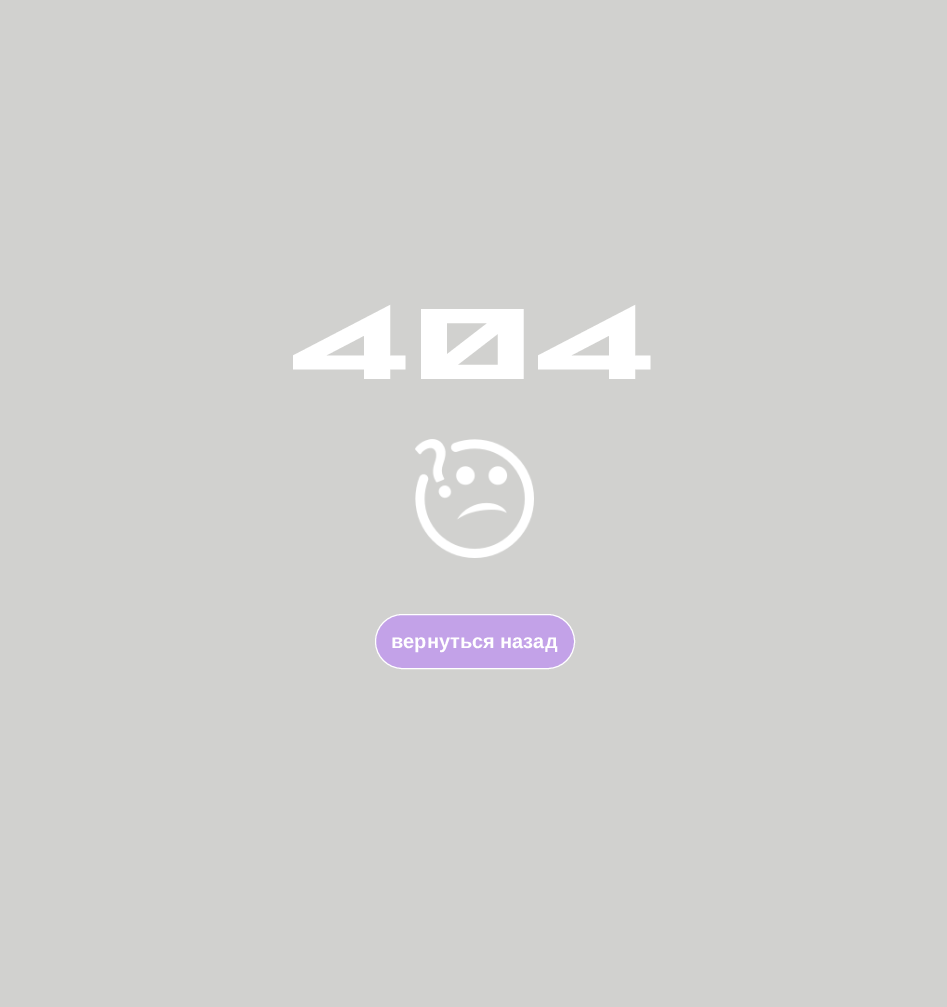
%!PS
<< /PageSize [947 1007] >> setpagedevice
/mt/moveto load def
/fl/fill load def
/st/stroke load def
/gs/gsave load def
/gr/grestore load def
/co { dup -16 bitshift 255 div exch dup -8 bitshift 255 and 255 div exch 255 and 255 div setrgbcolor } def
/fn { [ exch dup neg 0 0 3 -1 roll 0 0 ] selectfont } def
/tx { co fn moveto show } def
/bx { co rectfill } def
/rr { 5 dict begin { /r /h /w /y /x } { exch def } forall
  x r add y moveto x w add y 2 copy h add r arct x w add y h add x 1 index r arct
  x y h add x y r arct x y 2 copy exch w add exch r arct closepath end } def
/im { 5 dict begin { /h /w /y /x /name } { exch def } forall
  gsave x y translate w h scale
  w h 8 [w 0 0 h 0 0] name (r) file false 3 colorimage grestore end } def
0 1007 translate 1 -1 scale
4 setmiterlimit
0 0 947 1007 16#D1D1CF bx
(media/1.raw) 415 439 119 119 im
16#C3A2E8 co
375.5 614.5 199 54 27 rr gs fl gr
16#FFFFFF co
st
/StalinistOne-Regular 100 fn
291 379 mt 3 0 (404) ashow
(вернуться назад) 391 648 /LiberationSans-Bold 20 16#FFFFFF tx
showpage
